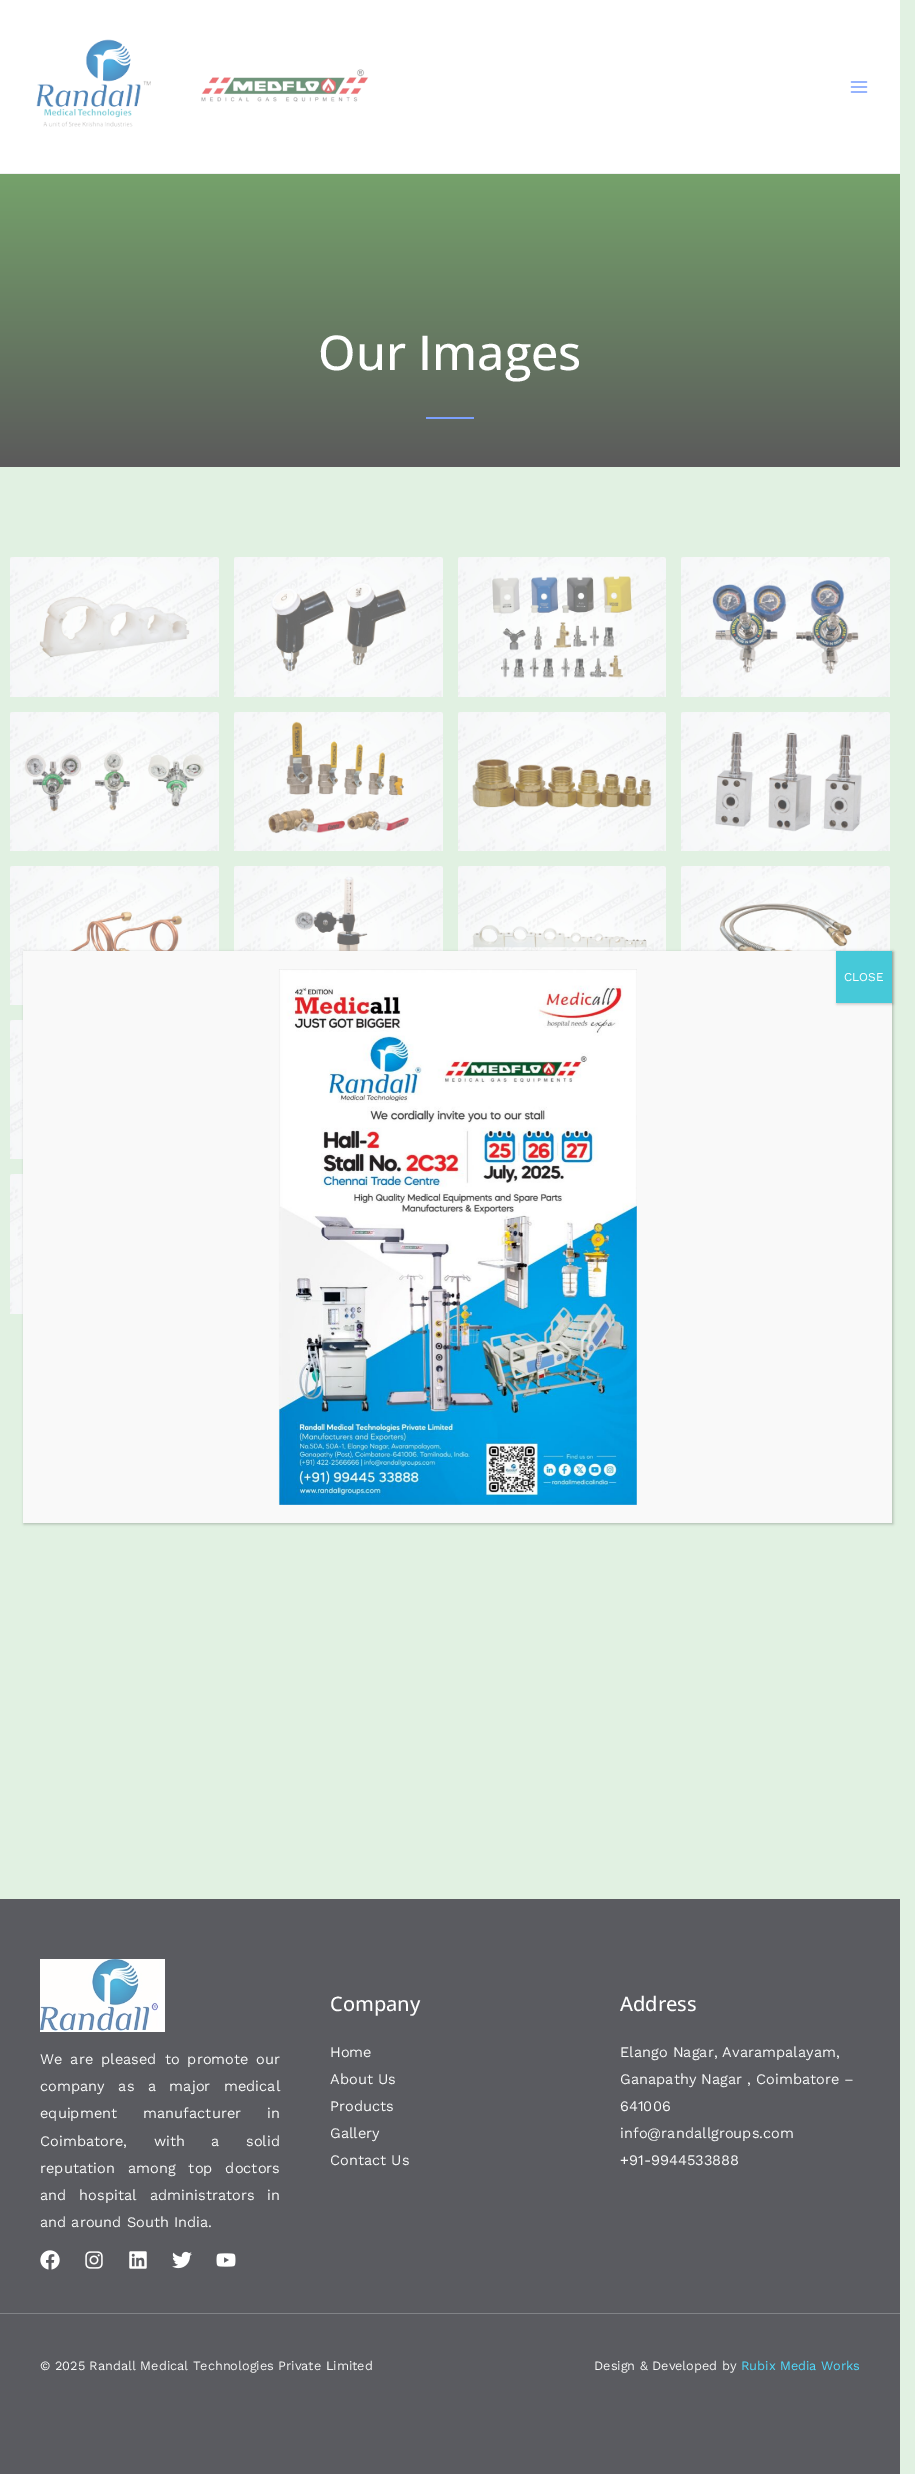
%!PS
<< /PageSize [915 2474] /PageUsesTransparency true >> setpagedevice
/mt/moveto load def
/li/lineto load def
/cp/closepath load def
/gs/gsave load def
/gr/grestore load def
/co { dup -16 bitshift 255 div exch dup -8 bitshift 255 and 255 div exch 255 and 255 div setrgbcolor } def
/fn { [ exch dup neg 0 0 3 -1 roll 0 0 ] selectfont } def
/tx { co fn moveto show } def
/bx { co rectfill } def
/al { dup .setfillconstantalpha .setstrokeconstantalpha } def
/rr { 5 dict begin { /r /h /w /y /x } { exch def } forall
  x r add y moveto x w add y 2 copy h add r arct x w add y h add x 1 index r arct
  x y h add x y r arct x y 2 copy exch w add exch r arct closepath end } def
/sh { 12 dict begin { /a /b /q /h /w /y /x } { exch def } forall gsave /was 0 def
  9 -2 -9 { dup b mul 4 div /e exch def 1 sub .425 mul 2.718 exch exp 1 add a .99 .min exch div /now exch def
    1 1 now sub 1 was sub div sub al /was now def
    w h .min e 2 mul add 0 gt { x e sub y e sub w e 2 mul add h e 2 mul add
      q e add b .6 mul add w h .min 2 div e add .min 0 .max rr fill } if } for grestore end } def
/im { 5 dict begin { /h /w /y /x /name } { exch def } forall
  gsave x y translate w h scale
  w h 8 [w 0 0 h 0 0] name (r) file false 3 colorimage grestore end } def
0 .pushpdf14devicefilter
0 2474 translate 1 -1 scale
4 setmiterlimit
0 0 915 2474 16#E1F1E2 bx
0 0 900 173 16#FFFFFF bx
0 173 900 1 16#F1F1F1 bx
(media/1.raw) 36 39 115 88 im
(media/2.raw) 201 69 168 33 im
(media/3.raw) 850 81 18 12 im
gs 0 174 mt 900 174 li 900 467 li 0 467 li cp clip newpath
<< /ShadingType 2 /ColorSpace /DeviceRGB /Coords [450 174 450 467] /Extend [true true] /Function << /FunctionType 2 /Domain [0 1] /C0 [.459 .635 .42] /C1 [.357 .353 .357] /N 1 >> >> shfill gr
426 417 48 2 16#7CA0FD bx
(media/4.raw) 10 557 209 140 im
(media/5.raw) 234 557 209 140 im
(media/6.raw) 458 557 208 140 im
(media/7.raw) 681 557 209 140 im
(media/8.raw) 10 712 209 139 im
(media/9.raw) 234 712 209 139 im
(media/10.raw) 458 712 208 139 im
(media/11.raw) 681 712 209 139 im
(media/12.raw) 10 866 209 139 im
(media/13.raw) 234 866 209 85 im
(media/14.raw) 458 866 208 85 im
(media/15.raw) 681 866 209 85 im
(media/16.raw) 10 1020 13 139 im
(media/17.raw) 10 1174 13 140 im
0 1899 900 575 16#5A5B60 bx
(media/18.raw) 40 1959 125 73 im
(media/19.raw) 40 2250 20 20 im
(media/20.raw) 85 2251 18 18 im
(media/21.raw) 129 2251 18 18 im
(media/22.raw) 172 2251 20 18 im
(media/23.raw) 216 2253 20 14 im
0 2313 900 1 16#818387 bx
16#020202 co
24 952 869 572 0 1.5 .23 sh
23 951 869 572 16#F9F9F9 bx
(media/24.raw) 278 969 359 536 im
16#020202 co
837 952 56 52 0 1.5 .23 sh
836 951 56 52 16#46C9D9 bx
(Our Images) 318 370 /OpenSans-Medium 48 16#FFFFFF tx
/WorkSans-Regular 14.6 fn
16#F7F8F8 co
40 2064 mt 3 0 32 (We are pleased to promote our) widthshow
40 2091 mt 8.5 0 32 (company as a major medical) widthshow
40 2118 mt 21 0 32 (equipment manufacturer in) widthshow
40 2146 mt 21.5 0 32 (Coimbatore, with a solid) widthshow
40 2173 mt 8 0 32 (reputation among top doctors) widthshow
40 2200 mt 8 0 32 (and hospital administrators in) widthshow
(and around South India.) 40 2227 /WorkSans-Regular 14.6 16#F7F8F8 tx
(Company) 330 2011 /OpenSans-Medium 20 16#FFFFFF tx
(Home) 330 2057 /WorkSans-Regular 14.6 16#F7F8F8 tx
(About Us) 330 2084 /WorkSans-Regular 14.6 16#F7F8F8 tx
(Products) 330 2111 /WorkSans-Regular 14.6 16#F7F8F8 tx
(Gallery) 330 2138 /WorkSans-Regular 14.6 16#F7F8F8 tx
(Contact Us) 330 2165 /WorkSans-Regular 14.6 16#F7F8F8 tx
(Address) 620 2011 /OpenSans-Medium 20 16#FFFFFF tx
(Elango Nagar, Avarampalayam,) 620 2057 /WorkSans-Regular 14.6 16#F7F8F8 tx
(Ganapathy Nagar , Coimbatore –) 620 2084 /WorkSans-Regular 14.6 16#F7F8F8 tx
(641006) 620 2111 /WorkSans-Regular 14.6 16#F7F8F8 tx
(info@randallgroups.com) 620 2138 /WorkSans-Regular 14.6 16#F7F8F8 tx
(+91-9944533888) 620 2165 /WorkSans-Regular 14.6 16#F7F8F8 tx
(© 2025 Randall Medical Technologies Private Limited) 40 2370 /WorkSans-Regular 12.75 16#F7F8F8 tx
(Design & Developed by) 594 2370 /WorkSans-Regular 12.75 16#F7F8F8 tx
(Rubix Media Works) 741 2370 /WorkSans-Regular 12.75 16#4FDCFF tx
(CLOSE) 844 981 /WorkSans-Regular 12 16#FFFFFF tx
.poppdf14devicefilter showpage
